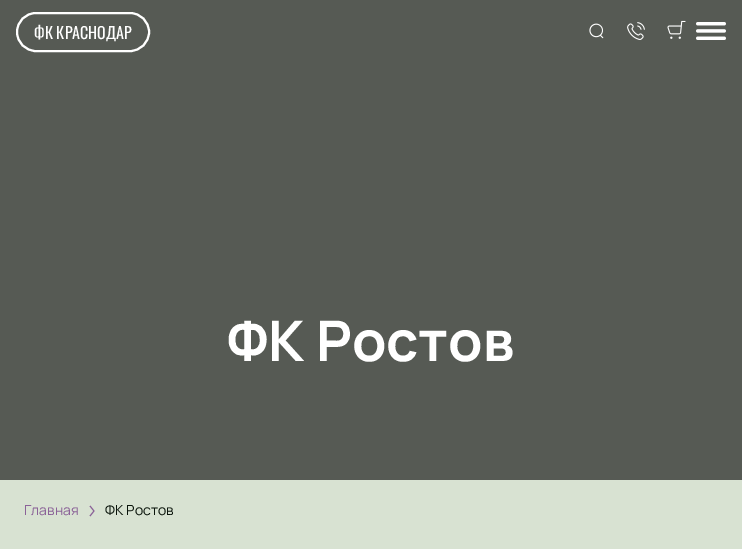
%!PS
<< /PageSize [742 549] >> setpagedevice
/mt/moveto load def
/li/lineto load def
/st/stroke load def
/lw/setlinewidth load def
/co { dup -16 bitshift 255 div exch dup -8 bitshift 255 and 255 div exch 255 and 255 div setrgbcolor } def
/fn { [ exch dup neg 0 0 3 -1 roll 0 0 ] selectfont } def
/tx { co fn moveto show } def
/bx { co rectfill } def
/rr { 5 dict begin { /r /h /w /y /x } { exch def } forall
  x r add y moveto x w add y 2 copy h add r arct x w add y h add x 1 index r arct
  x y h add x y r arct x y 2 copy exch w add exch r arct closepath end } def
/im { 5 dict begin { /h /w /y /x /name } { exch def } forall
  gsave x y translate w h scale
  w h 8 [w 0 0 h 0 0] name (r) file false 3 colorimage grestore end } def
0 549 translate 1 -1 scale
4 setmiterlimit
0 0 742 549 16#D8E2D2 bx
0 0 742 480 16#565A54 bx
16#FFFFFF co
2 lw
17 13 132 38 19 rr st
(media/1.raw) 589 23 15 16 im
(media/2.raw) 627 22 18 18 im
(media/3.raw) 667 20 19 19 im
(media/4.raw) 696 22 30 18 im
16#8B6298 co
1 lw
1 setlinejoin
90 506 mt 94 511 li 90 516 li st
(ФК КРАСНОДАР) 34 39 /Oswald-Regular 16 16#FFFFFF tx
(ФК Ростов) 227 361 /Manrope-ExtraLight 56 16#FFFFFF tx
(Главная) 24 515 /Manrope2-ExtraLight 14 16#8B6298 tx
(ФК Ростов) 105 515 /Manrope2-ExtraLight 14 16#0B150C tx
showpage
